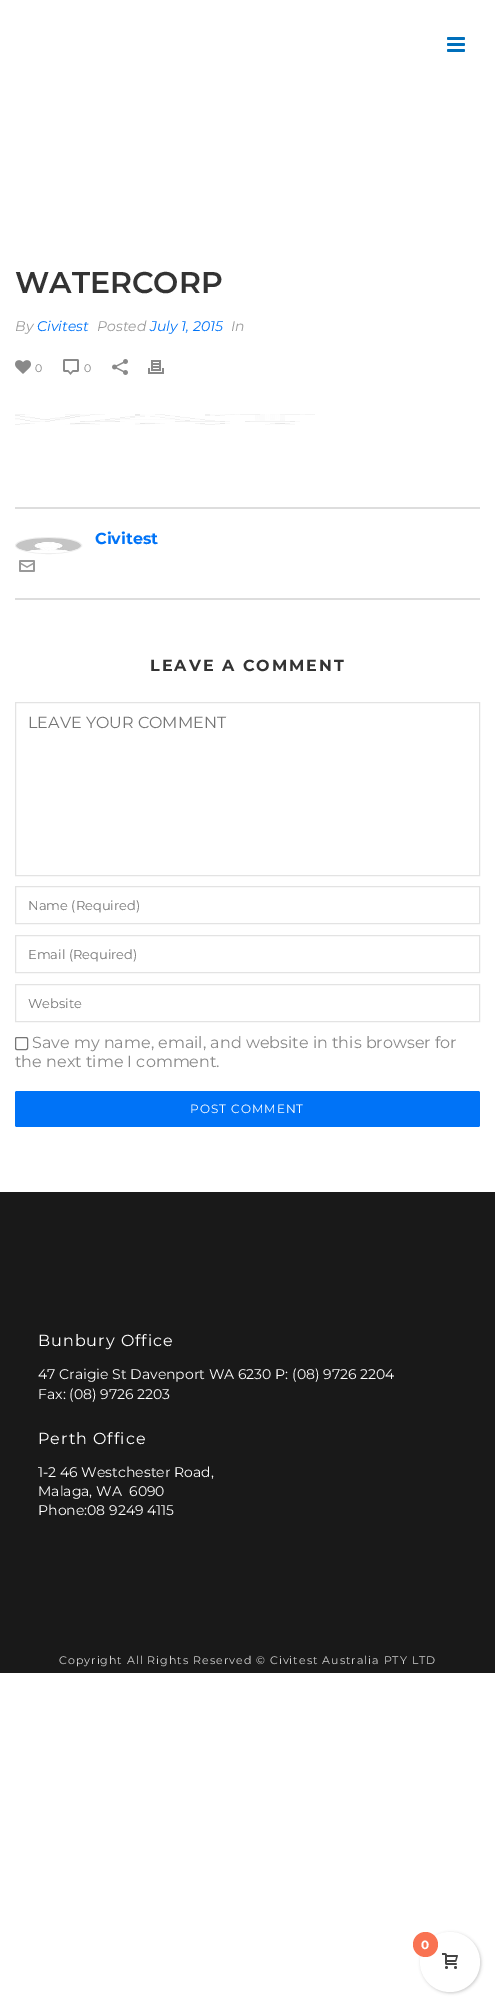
%!PS
<< /PageSize [495 2007] /PageUsesTransparency true >> setpagedevice
/mt/moveto load def
/ct/curveto load def
/cp/closepath load def
/fl/fill load def
/st/stroke load def
/co { dup -16 bitshift 255 div exch dup -8 bitshift 255 and 255 div exch 255 and 255 div setrgbcolor } def
/fn { [ exch dup neg 0 0 3 -1 roll 0 0 ] selectfont } def
/tx { co fn moveto show } def
/bx { co rectfill } def
/al { dup .setfillconstantalpha .setstrokeconstantalpha } def
/ci { newpath 0 360 arc closepath } def
/rr { 5 dict begin { /r /h /w /y /x } { exch def } forall
  x r add y moveto x w add y 2 copy h add r arct x w add y h add x 1 index r arct
  x y h add x y r arct x y 2 copy exch w add exch r arct closepath end } def
/sh { 12 dict begin { /a /b /q /h /w /y /x } { exch def } forall gsave /was 0 def
  9 -2 -9 { dup b mul 4 div /e exch def 1 sub .425 mul 2.718 exch exp 1 add a .99 .min exch div /now exch def
    1 1 now sub 1 was sub div sub al /was now def
    w h .min e 2 mul add 0 gt { x e sub y e sub w e 2 mul add h e 2 mul add
      q e add b .6 mul add w h .min 2 div e add .min 0 .max rr fill } if } for grestore end } def
/im { 5 dict begin { /h /w /y /x /name } { exch def } forall
  gsave x y translate w h scale
  w h 8 [w 0 0 h 0 0] name (r) file false 3 colorimage grestore end } def
0 .pushpdf14devicefilter
0 2007 translate 1 -1 scale
4 setmiterlimit
0 0 495 2007 16#FFFFFF bx
16#006FBB co
447 37 18 3 1.5 rr fl
447 43 18 3 1.5 rr fl
447 49 18 3 1.5 rr fl
(media/1.raw) 15 360 16 14 im
(media/2.raw) 63 359 16 16 im
(media/3.raw) 112 359 16 16 im
(media/4.raw) 148 360 16 14 im
(media/5.raw) 15 414 300 11 im
15 507 465 2 16#DDDDDD bx
15 598 465 2 16#DDDDDD bx
16#EEEEEE co
48.5 537.5 mt 66.5 537.5 81.5 541 81.5 545.5 ct 81.5 550 66.5 553.5 48.5 553.5 ct 30.5 553.5 15.5 550 15.5 545.5 ct 15.5 541 30.5 537.5 48.5 537.5 ct cp st
(media/6.raw) 16 538 65 15 im
(media/7.raw) 19 560 16 12 im
16#E3E3E3 co
15.5 702.5 464 173 rectstroke
15.5 886.5 464 37 rectstroke
15.5 935.5 464 37 rectstroke
15.5 984.5 464 37 rectstroke
16#767676 co
15.5 1037.5 12 12 1.5 rr st
16#0073F7 co
15 1091 465 36 2 rr fl
0 1192 495 481 16#191919 bx
16#000000 co
421 1933 60 60 30 1.5 .2 sh
16#FFFFFF co
450 1962 30 ci fl
16#F97352 co
425.5 1944.5 12.5 ci fl
(media/8.raw) 442 1953 16 16 im
(WATERCORP) 15 293 /Montserrat-SemiBold 30 16#333333 tx
(By) 15 331 /Montserrat-Italic 14 16#999999 tx
(Civitest) 37 331 /Montserrat-Italic 14 16#0073F7 tx
(Posted) 97 331 /Montserrat-Italic 14 16#999999 tx
(July 1, 2015) 150 331 /Montserrat-Italic 14 16#0073F7 tx
(In) 231 331 /Montserrat-Italic 14 16#999999 tx
(0) 35 372 /Montserrat-Regular 11 16#898989 tx
(0) 84 372 /Montserrat-Regular 11 16#898989 tx
(Civitest) 95 544 /Montserrat-Bold 16 16#0073F7 tx
16#333333 co
150 671 mt 2 0 (LEAVE A COMMENT) ashow
(LEAVE YOUR COMMENT) 28 728 /Montserrat-Regular 16 16#757575 tx
(Name \(Required\)) 28 910 /Montserrat-Regular 13 16#757575 tx
(Email \(Required\)) 28 959 /Montserrat-Regular 13 16#757575 tx
(Website) 28 1008 /Montserrat-Regular 13 16#757575 tx
(Save my name, email, and website in this browser for) 32 1048 /Montserrat-Regular 16 16#898989 tx
(the next time I comment.) 15 1067 /Montserrat-Regular 16 16#898989 tx
/Montserrat-Regular 12 fn
16#FFFFFF co
190 1113 mt 1 0 (POST COMMENT) ashow
/Montserrat-Regular 16 fn
38 1346 mt 1 0 (Bunbury Office) ashow
(47 Craigie St Davenport WA 6230 P: \(08\) 9726 2204) 38 1379 /Montserrat-Regular 14 16#FFFFFF tx
(Fax: \(08\) 9726 2203) 38 1399 /Montserrat-Regular 14 16#FFFFFF tx
/Montserrat-Regular 16 fn
38 1444 mt 1 0 (Perth Office) ashow
(1-2 46 Westchester Road,) 38 1477 /Montserrat-Regular 14 16#FFFFFF tx
(Malaga, WA  6090) 38 1496 /Montserrat-Regular 14 16#FFFFFF tx
(Phone:08 9249 4115) 38 1515 /Montserrat-Regular 14 16#FFFFFF tx
/Montserrat-Regular 11 fn
16#D1D1D1 co
59 1664 mt 1 0 (Copyright All Rights Reserved © Civitest Australia PTY LTD) ashow
(0) 421 1949 /Montserrat-Bold 12 16#FFFFFF tx
.poppdf14devicefilter showpage
